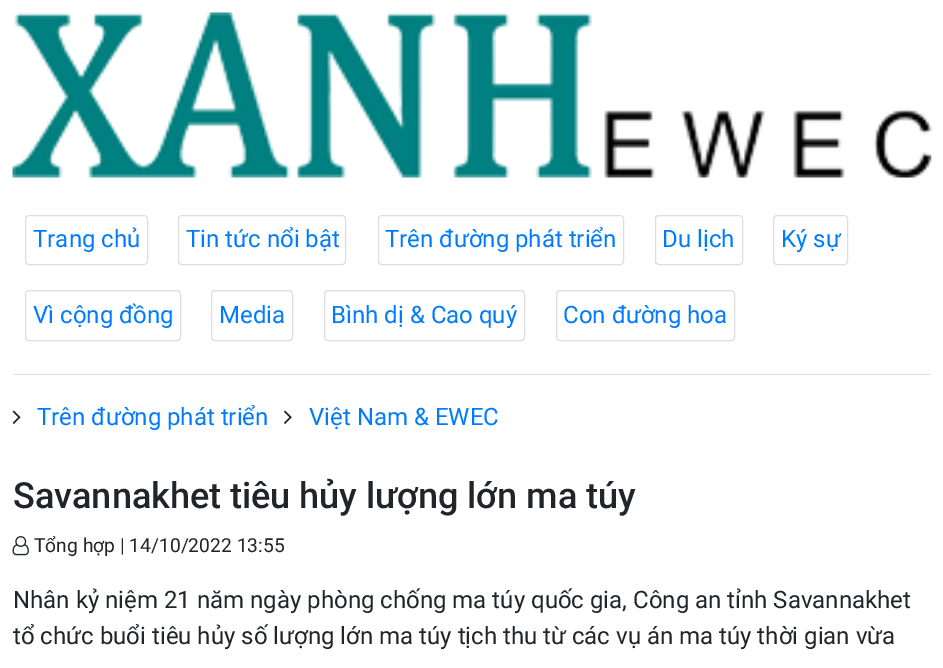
%!PS
<< /PageSize [943 668] >> setpagedevice
/st/stroke load def
/co { dup -16 bitshift 255 div exch dup -8 bitshift 255 and 255 div exch 255 and 255 div setrgbcolor } def
/fn { [ exch dup neg 0 0 3 -1 roll 0 0 ] selectfont } def
/tx { co fn moveto show } def
/bx { co rectfill } def
/rr { 5 dict begin { /r /h /w /y /x } { exch def } forall
  x r add y moveto x w add y 2 copy h add r arct x w add y h add x 1 index r arct
  x y h add x y r arct x y 2 copy exch w add exch r arct closepath end } def
/im { 5 dict begin { /h /w /y /x /name } { exch def } forall
  gsave x y translate w h scale
  w h 8 [w 0 0 h 0 0] name (r) file false 3 colorimage grestore end } def
0 668 translate 1 -1 scale
4 setmiterlimit
0 0 943 668 16#FFFFFF bx
13 374 918 1 16#DEDEDE bx
(media/1.raw) 12 12 920 166 im
25.5 215.5 122 49 3.5 rr st
178.5 215.5 167 49 3.5 rr st
378.5 215.5 245 49 3.5 rr st
655.5 215.5 87 49 3.5 rr st
773.5 215.5 74 49 3.5 rr st
25.5 290.5 155 50 3.5 rr st
211.5 290.5 81 50 3.5 rr st
324.5 290.5 200 50 3.5 rr st
556.5 290.5 178 50 3.5 rr st
(media/2.raw) 12 410 9 14 im
(media/3.raw) 284 410 8 14 im
(media/4.raw) 12 536 17 20 im
(Trang chủ) 33 247 /Roboto-Regular 24 16#007BFF tx
(Tin tức nổi bật) 186 247 /Roboto-Regular 24 16#007BFF tx
(Trên đường phát triển) 385 247 /Roboto-Regular 24 16#007BFF tx
(Du lịch) 662 247 /Roboto-Regular 24 16#007BFF tx
(Ký sự) 781 247 /Roboto-Regular 24 16#007BFF tx
(Vì cộng đồng) 33 323 /Roboto-Regular 24 16#007BFF tx
(Media) 219 323 /Roboto-Regular 24 16#007BFF tx
(Bình dị & Cao quý) 331 323 /Roboto-Regular 24 16#007BFF tx
(Con đường hoa) 563 323 /Roboto-Regular 24 16#007BFF tx
(Trên đường phát triển) 37 425 /Roboto-Regular 24 16#007BFF tx
(Việt Nam & EWEC) 309 425 /Roboto-Regular 24 16#007BFF tx
(Savannakhet tiêu hủy lượng lớn ma túy) 13 508 /Roboto-Medium 36 16#212529 tx
(Tổng hợp | 14/10/2022 13:55) 34 552 /Roboto-Regular 19.25 16#212529 tx
(Nhân kỷ niệm 21 năm ngày phòng chống ma túy quốc gia, Công an tỉnh Savannakhet) 13 608 /Roboto-Regular 24 16#212529 tx
(tổ chức buổi tiêu hủy số lượng lớn ma túy tịch thu từ các vụ án ma túy thời gian vừa) 13 644 /Roboto-Regular 24 16#212529 tx
showpage
